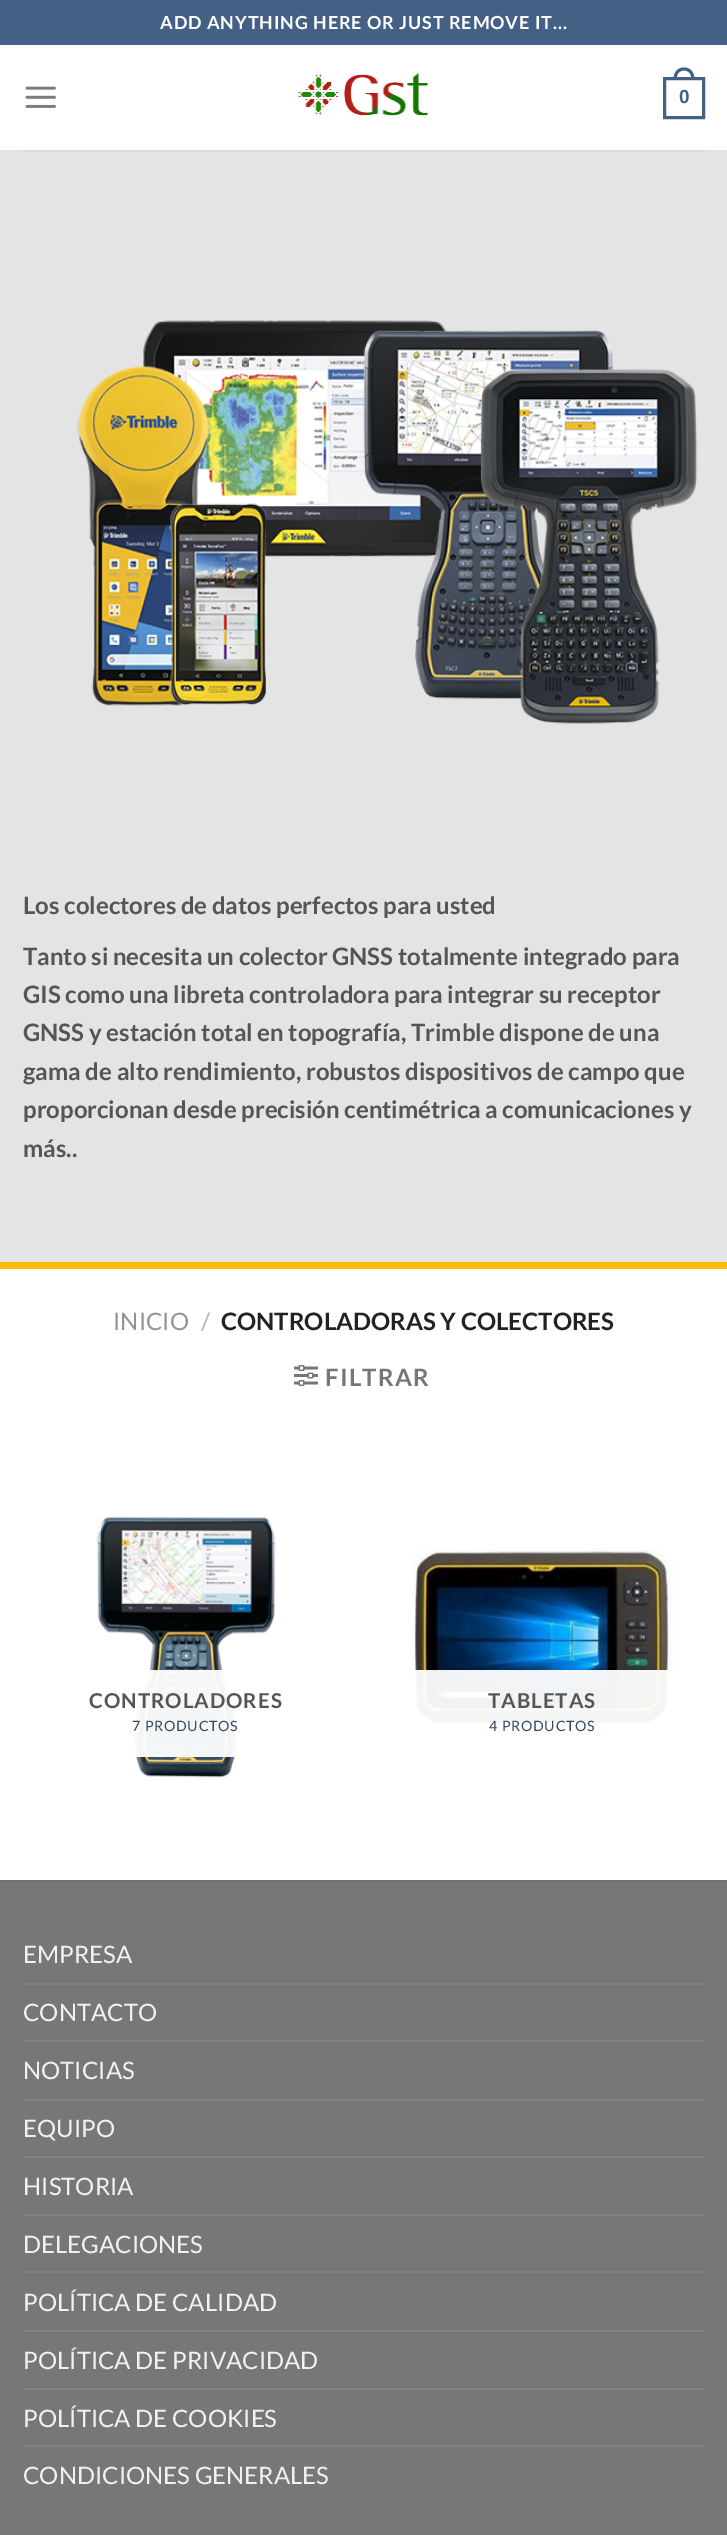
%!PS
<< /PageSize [727 2535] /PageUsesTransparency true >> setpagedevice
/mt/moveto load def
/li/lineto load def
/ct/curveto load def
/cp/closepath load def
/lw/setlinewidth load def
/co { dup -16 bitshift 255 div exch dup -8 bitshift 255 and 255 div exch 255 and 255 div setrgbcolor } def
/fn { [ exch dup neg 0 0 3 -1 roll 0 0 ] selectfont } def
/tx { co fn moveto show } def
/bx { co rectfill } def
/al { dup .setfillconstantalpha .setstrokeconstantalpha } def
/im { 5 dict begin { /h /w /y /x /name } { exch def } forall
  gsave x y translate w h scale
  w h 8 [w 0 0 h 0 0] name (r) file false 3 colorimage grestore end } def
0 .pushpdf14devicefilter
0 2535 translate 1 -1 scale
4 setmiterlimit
0 0 727 2535 16#FFFFFF bx
0 0 727 45 16#446084 bx
(media/1.raw) 25 86 31 22 im
(media/2.raw) 298 73 131 43 im
3 lw
664.5 78.5 39 39 rectstroke
684 67.5 mt 691 67.5 694.5 73 694.5 79.5 ct 673.5 79.5 li 673.5 73 677 67.5 684 67.5 ct cp 684 70.5 mt 689.5 70.5 691.5 75 691.5 79.5 ct 676.5 79.5 li 676.5 75 678.5 70.5 684 70.5 ct cp eofill
0 150 727 1112 16#E4E4E4 bx
23 150 682 2 16#D9D9D9 bx
(media/3.raw) 77 320 621 404 im
0 1262 727 7 16#FCBC04 bx
(media/4.raw) 294 1365 24 21 im
(media/5.raw) 96 1516 180 262 im
0.95 al
134 1670 104 87 16#FFFFFF bx
1 al
(media/6.raw) 413 1547 261 183 im
0.95 al
413 1670 261 60 16#FFFFFF bx
1 al
0 1882 727 653 16#777777 bx
0 1880 727 2 16#717171 bx
23 1983 682 2 16#828282 bx
23 2040 682 2 16#828282 bx
23 2099 682 2 16#828282 bx
23 2156 682 2 16#828282 bx
23 2214 682 2 16#828282 bx
23 2271 682 2 16#828282 bx
23 2330 682 2 16#828282 bx
23 2388 682 2 16#828282 bx
23 2445 682 2 16#828282 bx
/Lato-Bold 18 fn
16#FFFFFF co
160 29 mt .9 0 (ADD ANYTHING HERE OR JUST REMOVE IT...) ashow
(0) 679 103 /LiberationSans-Bold 19 16#446084 tx
(Los colectores de datos perfectos para usted) 23 914 /Lato-Bold 24 16#555555 tx
(Tanto si necesita un colector GNSS totalmente integrado para) 23 965 /Lato-Bold 24 16#555555 tx
(GIS como una libreta controladora para integrar su receptor) 23 1003 /Lato-Bold 24 16#555555 tx
(GNSS y estación total en topografía, Trimble dispone de una) 23 1041 /Lato-Bold 24 16#555555 tx
(gama de alto rendimiento, robustos dispositivos de campo que) 23 1080 /Lato-Bold 24 16#555555 tx
(proporcionan desde precisión centimétrica a comunicaciones y) 23 1118 /Lato-Bold 24 16#555555 tx
(más..) 23 1157 /Lato-Bold 24 16#555555 tx
(INICIO) 113 1330 /Lato-Regular 24 16#949494 tx
(/) 201 1330 /Lato-Regular 24 16#B2B2B2 tx
(CONTROLADORAS Y COLECTORES) 221 1330 /Lato-Bold 24 16#222222 tx
16#777777 co
325 1386 mt 1.25 0 (FILTRAR) ashow
/Lato-Bold 20.5 fn
16#555555 co
89 1708 mt 1 0 (CONTROLADORES) ashow
/Lato-Regular 14.25 fn
16#334862 co
132 1731 mt .75 0 (7 PRODUCTOS) ashow
/Lato-Bold 20.5 fn
16#555555 co
488 1708 mt 1 0 (TABLETAS) ashow
/Lato-Regular 14.25 fn
16#334862 co
489 1731 mt .75 0 (4 PRODUCTOS) ashow
(EMPRESA) 23 1963 /Lato-Regular 24 16#F1F1F1 tx
(CONTACTO) 23 2021 /Lato-Regular 24 16#F1F1F1 tx
(NOTICIAS) 23 2079 /Lato-Regular 24 16#F1F1F1 tx
(EQUIPO) 23 2137 /Lato-Regular 24 16#F1F1F1 tx
(HISTORIA) 23 2195 /Lato-Regular 24 16#F1F1F1 tx
(DELEGACIONES) 23 2253 /Lato-Regular 24 16#F1F1F1 tx
(POLÍTICA DE CALIDAD) 23 2311 /Lato-Regular 24 16#F1F1F1 tx
(POLÍTICA DE PRIVACIDAD) 23 2369 /Lato-Regular 24 16#F1F1F1 tx
(POLÍTICA DE COOKIES) 23 2427 /Lato-Regular 24 16#F1F1F1 tx
(CONDICIONES GENERALES) 23 2484 /Lato-Regular 24 16#F1F1F1 tx
.poppdf14devicefilter showpage
